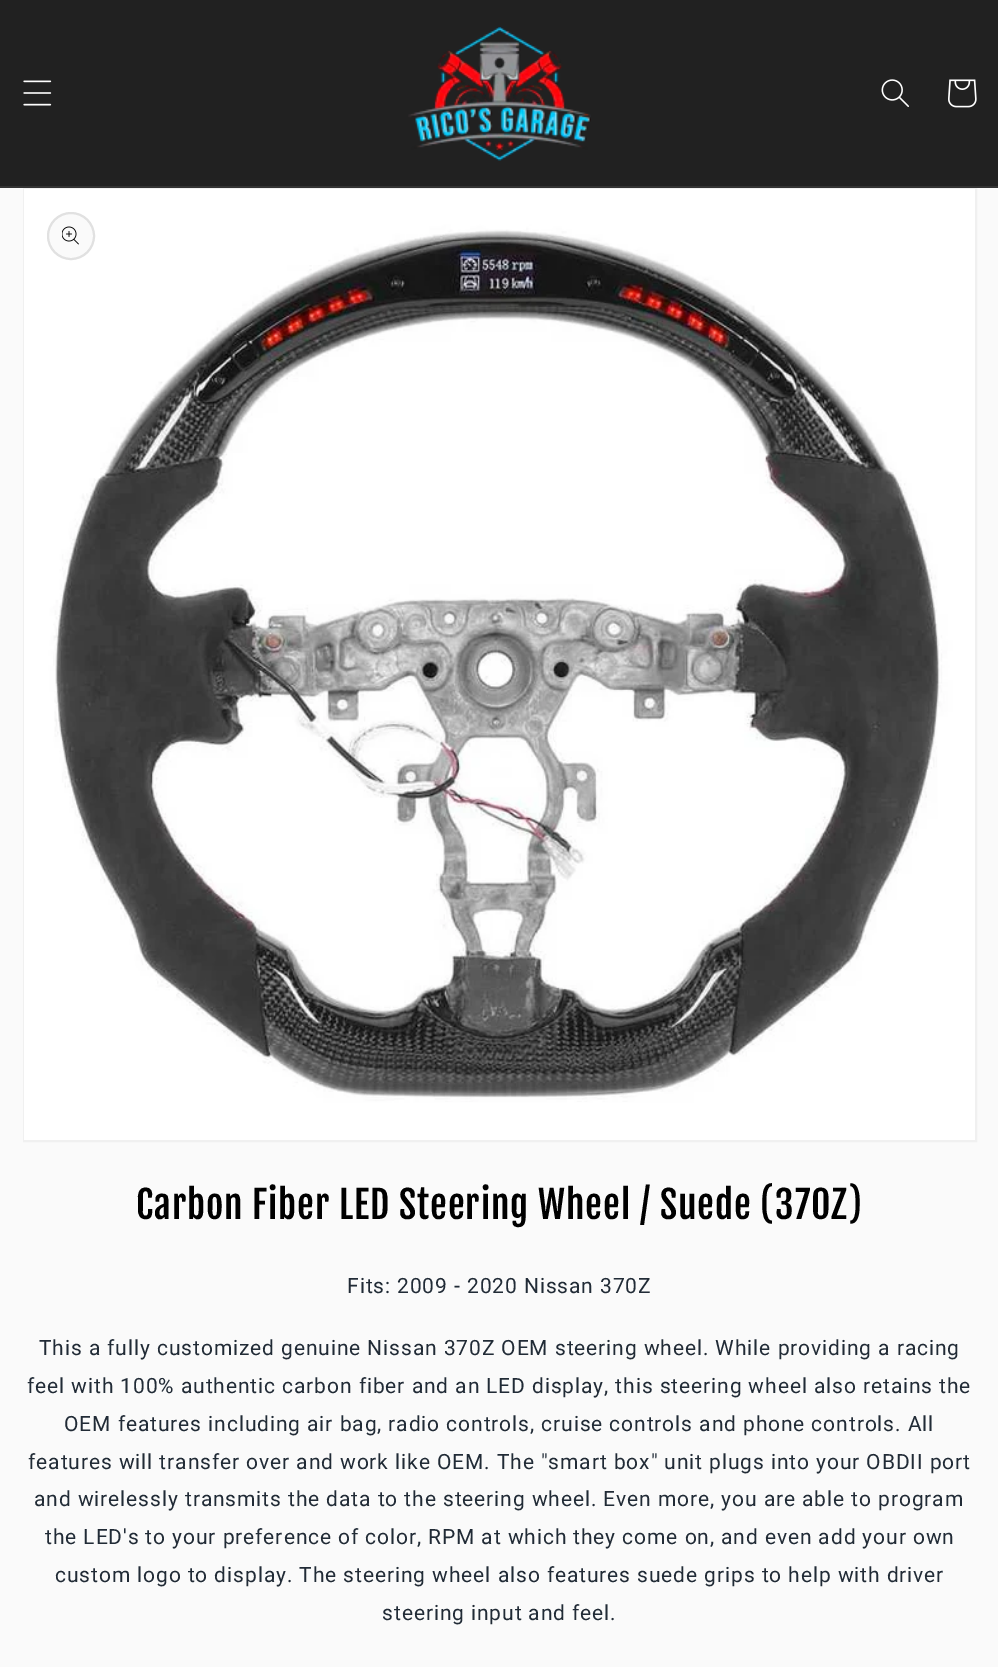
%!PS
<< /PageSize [998 1667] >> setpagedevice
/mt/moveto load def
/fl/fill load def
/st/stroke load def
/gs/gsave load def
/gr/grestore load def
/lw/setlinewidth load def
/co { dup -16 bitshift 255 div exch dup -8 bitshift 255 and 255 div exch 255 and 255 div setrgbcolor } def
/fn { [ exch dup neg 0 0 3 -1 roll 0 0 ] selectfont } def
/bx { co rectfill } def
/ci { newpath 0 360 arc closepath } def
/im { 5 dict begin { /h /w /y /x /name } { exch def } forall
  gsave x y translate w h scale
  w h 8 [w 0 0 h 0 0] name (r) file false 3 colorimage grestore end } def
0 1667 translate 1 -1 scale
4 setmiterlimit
0 0 998 1667 16#FAFAFA bx
0 0 998 186 16#212121 bx
0 186 998 2 16#333333 bx
(media/1.raw) 23 80 29 26 im
(media/2.raw) 408 27 183 134 im
(media/3.raw) 881 79 28 28 im
(media/4.raw) 948 79 29 29 im
16#F0F0F0 co
2 lw
24 189 952 952 rectstroke
(media/5.raw) 24 189 951 951 im
16#FAFAFA co
71 236 23 ci gs fl gr
16#E1E1E1 co
st
(media/6.raw) 62 226 17 19 im
/FjallaOne-Regular 37.5 fn
16#000000 co
136 1219 mt .9 0 (Carbon Fiber LED Steering Wheel / Suede \(370Z\)) ashow
/Roboto-Regular 21 fn
16#212B36 co
347 1293 mt .9 0 (Fits: 2009 - 2020 Nissan 370Z) ashow
39 1355 mt .9 0 (This a fully customized genuine Nissan 370Z OEM steering wheel. While providing a racing) ashow
27 1393 mt .9 0 (feel with 100% authentic carbon fiber and an LED display, this steering wheel also retains the) ashow
64 1431 mt .9 0 (OEM features including air bag, radio controls, cruise controls and phone controls. All) ashow
28 1469 mt .9 0 (features will transfer over and work like OEM. The "smart box" unit plugs into your OBDII port) ashow
34 1506 mt .9 0 (and wirelessly transmits the data to the steering wheel. Even more, you are able to program) ashow
45 1544 mt .9 0 (the LED's to your preference of color, RPM at which they come on, and even add your own) ashow
55 1582 mt .9 0 (custom logo to display. The steering wheel also features suede grips to help with driver) ashow
382 1620 mt .9 0 (steering input and feel.) ashow
showpage
